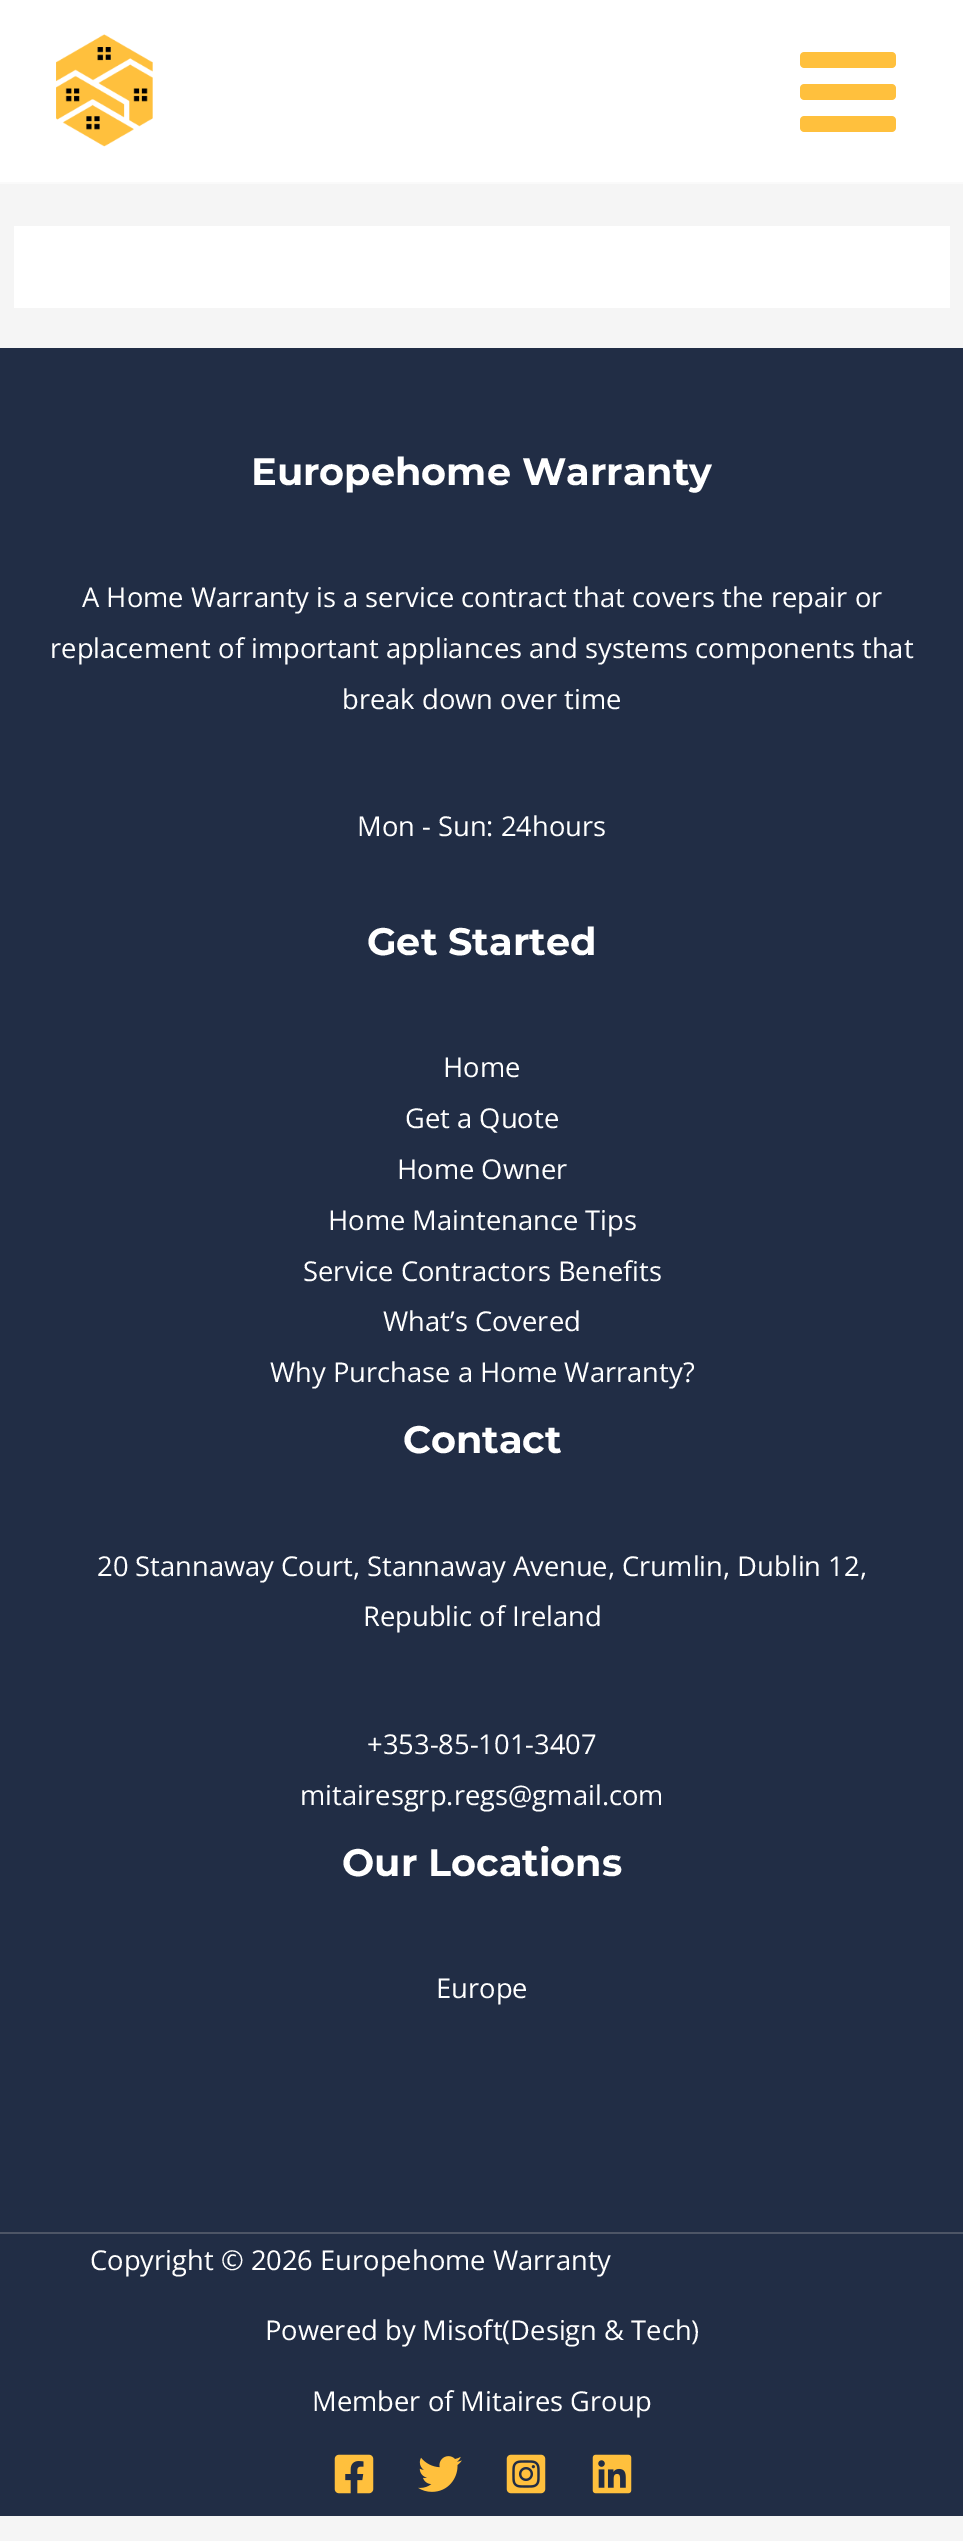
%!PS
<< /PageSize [963 2541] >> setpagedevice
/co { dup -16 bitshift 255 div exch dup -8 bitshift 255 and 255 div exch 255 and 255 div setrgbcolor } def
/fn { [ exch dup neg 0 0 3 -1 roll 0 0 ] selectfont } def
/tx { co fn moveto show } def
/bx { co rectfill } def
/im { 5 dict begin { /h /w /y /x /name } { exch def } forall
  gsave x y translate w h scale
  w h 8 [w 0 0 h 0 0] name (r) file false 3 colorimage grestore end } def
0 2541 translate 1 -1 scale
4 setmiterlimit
0 0 963 2541 16#F5F5F5 bx
0 0 963 182 16#FFFFFF bx
0 182 963 2 16#FAFAFA bx
(media/1.raw) 56 34 97 113 im
(media/2.raw) 800 52 96 80 im
14 226 936 82 16#FFFFFF bx
0 348 963 2168 16#212D45 bx
0 2232 963 2 16#4D5566 bx
(media/3.raw) 334 2454 40 40 im
(media/4.raw) 418 2456 44 36 im
(media/5.raw) 506 2454 40 40 im
(media/6.raw) 592 2454 40 40 im
(Europehome Warranty) 251 485 /Montserrat-Thin 38.25 16#FFFFFF tx
(A Home Warranty is a service contract that covers the repair or) 82 607 /OpenSans-Regular 27.35 16#FFFFFF tx
(replacement of important appliances and systems components that) 50 658 /OpenSans-Regular 27.35 16#FFFFFF tx
(break down over time) 342 709 /OpenSans-Regular 27.35 16#FFFFFF tx
(Mon - Sun: 24hours) 357 836 /OpenSans-Regular 27.35 16#FFFFFF tx
(Get Started) 367 955 /Montserrat-Thin 38.25 16#FFFFFF tx
(Home) 443 1077 /OpenSans-Regular 27.35 16#FFFFFF tx
(Get a Quote) 405 1128 /OpenSans-Regular 27.35 16#FFFFFF tx
(Home Owner) 397 1179 /OpenSans-Regular 27.35 16#FFFFFF tx
(Home Maintenance Tips) 328 1230 /OpenSans-Regular 27.35 16#FFFFFF tx
(Service Contractors Benefits) 303 1281 /OpenSans-Regular 27.35 16#FFFFFF tx
(What’s Covered) 383 1331 /OpenSans-Regular 27.35 16#FFFFFF tx
(Why Purchase a Home Warranty?) 270 1382 /OpenSans-Regular 27.35 16#FFFFFF tx
(Contact) 403 1453 /Montserrat-Thin 38.25 16#FFFFFF tx
(20 Stannaway Court, Stannaway Avenue, Crumlin, Dublin 12,) 97 1576 /OpenSans-Regular 27.35 16#FFFFFF tx
(Republic of Ireland) 363 1626 /OpenSans-Regular 27.35 16#FFFFFF tx
(+353-85-101-3407) 367 1754 /OpenSans-Regular 27.35 16#FFFFFF tx
(mitairesgrp.regs@gmail.com) 300 1805 /OpenSans-Regular 27.35 16#FFFFFF tx
(Our Locations) 342 1876 /Montserrat-Thin 38.25 16#FFFFFF tx
(Europe) 436 1998 /OpenSans-Regular 27.35 16#FFFFFF tx
(Copyright © 2026 Europehome Warranty) 90 2270 /OpenSans-Regular 27.35 16#FFFFFF tx
(Powered by Misoft\(Design & Tech\)) 265 2340 /OpenSans-Regular 27.35 16#FFFFFF tx
(Member of Mitaires Group) 312 2411 /OpenSans-Regular 27.35 16#FFFFFF tx
showpage
